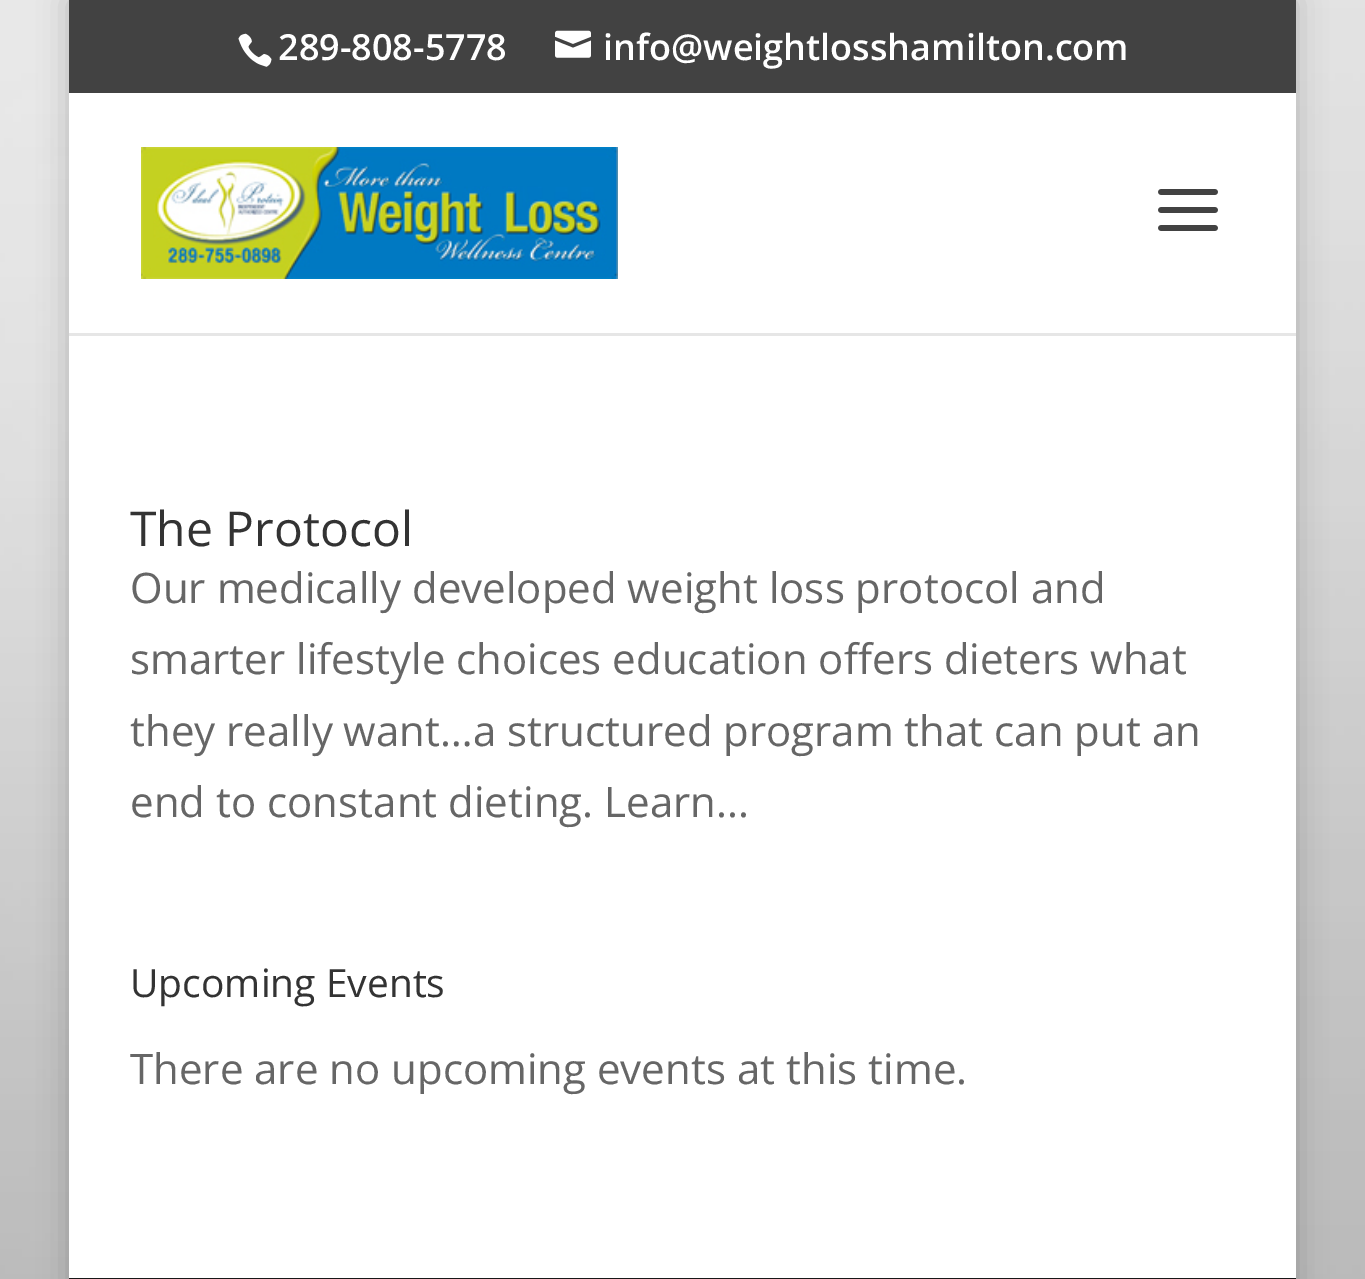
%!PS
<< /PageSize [1365 1279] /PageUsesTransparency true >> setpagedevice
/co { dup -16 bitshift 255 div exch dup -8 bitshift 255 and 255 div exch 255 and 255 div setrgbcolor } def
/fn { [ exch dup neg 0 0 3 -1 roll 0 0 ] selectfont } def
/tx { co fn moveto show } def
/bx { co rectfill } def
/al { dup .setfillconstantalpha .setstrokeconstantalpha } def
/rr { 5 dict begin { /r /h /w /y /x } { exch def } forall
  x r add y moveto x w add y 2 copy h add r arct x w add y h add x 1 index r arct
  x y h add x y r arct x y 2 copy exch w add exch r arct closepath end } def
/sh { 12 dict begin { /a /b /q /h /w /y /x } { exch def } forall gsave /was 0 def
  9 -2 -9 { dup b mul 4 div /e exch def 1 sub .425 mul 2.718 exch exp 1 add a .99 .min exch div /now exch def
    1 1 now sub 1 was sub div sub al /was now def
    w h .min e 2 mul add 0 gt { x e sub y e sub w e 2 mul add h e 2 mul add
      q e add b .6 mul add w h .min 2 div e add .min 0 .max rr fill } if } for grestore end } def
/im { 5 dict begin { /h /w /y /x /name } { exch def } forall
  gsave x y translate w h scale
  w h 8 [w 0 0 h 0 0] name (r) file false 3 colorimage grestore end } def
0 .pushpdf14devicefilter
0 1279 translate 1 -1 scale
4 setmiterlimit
0 0 1365 1279 16#FFFFFF bx
(media/1.raw) 0 0 1365 1279 im
16#000000 co
69 0 1227 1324 0 15 .2 sh
69 0 1227 93 16#424242 bx
(media/2.raw) 238 33 34 34 im
(media/3.raw) 555 30 36 28 im
69 333 1227 3 16#E6E6E6 bx
69 93 1227 240 16#FFFFFF bx
(media/4.raw) 141 147 477 132 im
(media/5.raw) 1158 189 60 42 im
69 336 1227 942 16#FFFFFF bx
69 1278 1227 1 16#171717 bx
(289-808-5778) 278 60 /OpenSans-SemiBold 36 16#FFFFFF tx
(info@weightlosshamilton.com) 603 60 /OpenSans-SemiBold 36 16#FFFFFF tx
(The Protocol) 130 546 /OpenSans-Regular 48 16#333333 tx
(Our medically developed weight loss protocol and) 130 603 /OpenSans-Regular 42 16#666666 tx
(smarter lifestyle choices education offers dieters what) 130 674 /OpenSans-Regular 42 16#666666 tx
(they really want…a structured program that can put an) 130 746 /OpenSans-Regular 42 16#666666 tx
(end to constant dieting. Learn...) 130 817 /OpenSans-Regular 42 16#666666 tx
(Upcoming Events) 130 997 /OpenSans-Regular 39 16#333333 tx
(There are no upcoming events at this time.) 130 1084 /OpenSans-Regular 42 16#666666 tx
.poppdf14devicefilter showpage
